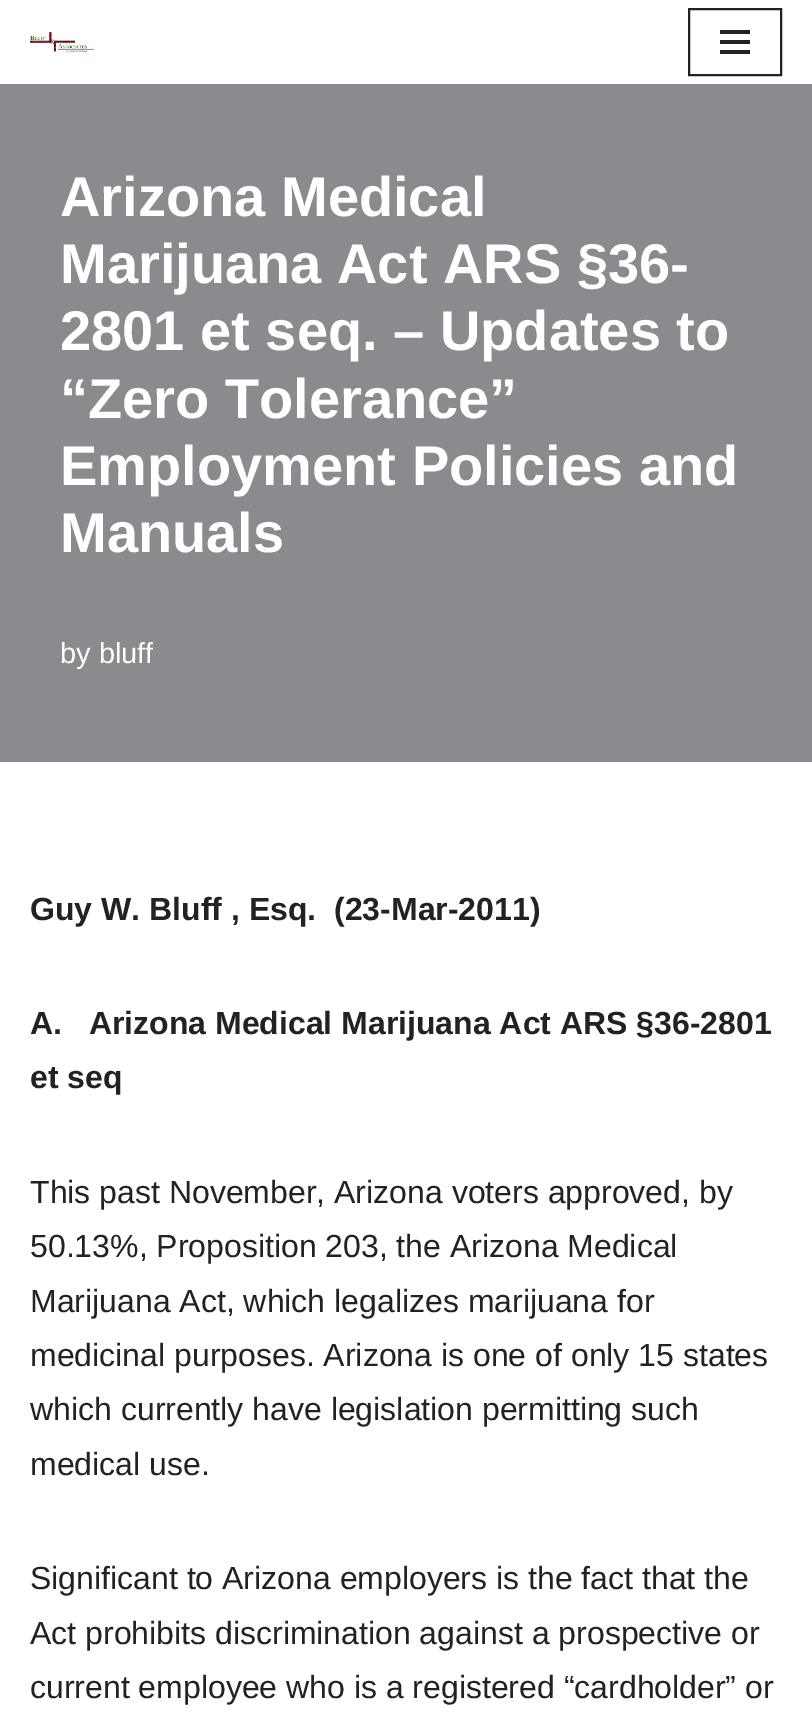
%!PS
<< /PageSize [812 1717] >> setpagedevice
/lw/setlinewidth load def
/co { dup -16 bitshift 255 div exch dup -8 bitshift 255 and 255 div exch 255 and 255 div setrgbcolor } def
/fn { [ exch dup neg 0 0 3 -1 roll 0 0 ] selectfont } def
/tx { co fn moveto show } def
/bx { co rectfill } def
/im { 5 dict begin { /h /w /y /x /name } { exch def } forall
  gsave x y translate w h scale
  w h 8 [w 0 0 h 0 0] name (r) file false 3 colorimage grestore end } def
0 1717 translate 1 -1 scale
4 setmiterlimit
0 0 812 1717 16#FFFFFF bx
0 84 812 678 16#8A8B8E bx
(media/1.raw) 30 32 64 20 im
16#222222 co
2 lw
689 9 92 66 rectstroke
720 30 30 4 16#222222 bx
720 40 30 4 16#222222 bx
720 50 30 4 16#222222 bx
(Arizona Medical) 60 216 /LiberationSans-Bold 56 16#FFFFFF tx
(Marijuana Act ARS §36-) 60 283 /LiberationSans-Bold 56 16#FFFFFF tx
(2801 et seq. – Updates to) 60 350 /LiberationSans-Bold 56 16#FFFFFF tx
(“Zero Tolerance”) 60 418 /LiberationSans-Bold 56 16#FFFFFF tx
(Employment Policies and) 60 485 /LiberationSans-Bold 56 16#FFFFFF tx
(Manuals) 60 552 /LiberationSans-Bold 56 16#FFFFFF tx
(by bluff) 60 663 /LiberationSans-Regular 29 16#FFFFFF tx
(Guy W. Bluff , Esq.  \(23-Mar-2011\)) 30 920 /LiberationSans-Bold 32 16#222222 tx
(A.   Arizona Medical Marijuana Act ARS §36-2801) 30 1034 /LiberationSans-Bold 32 16#222222 tx
(et seq) 30 1088 /LiberationSans-Bold 32 16#222222 tx
(This past November, Arizona voters approved, by) 30 1203 /LiberationSans-Regular 32 16#222222 tx
(50.13%, Proposition 203, the Arizona Medical) 30 1257 /LiberationSans-Regular 32 16#222222 tx
(Marijuana Act, which legalizes marijuana for) 30 1312 /LiberationSans-Regular 32 16#222222 tx
(medicinal purposes. Arizona is one of only 15 states) 30 1366 /LiberationSans-Regular 32 16#222222 tx
(which currently have legislation permitting such) 30 1420 /LiberationSans-Regular 32 16#222222 tx
(medical use.) 30 1475 /LiberationSans-Regular 32 16#222222 tx
(Significant to Arizona employers is the fact that the) 30 1589 /LiberationSans-Regular 32 16#222222 tx
(Act prohibits discrimination against a prospective or) 30 1644 /LiberationSans-Regular 32 16#222222 tx
(current employee who is a registered “cardholder” or) 30 1698 /LiberationSans-Regular 32 16#222222 tx
showpage
